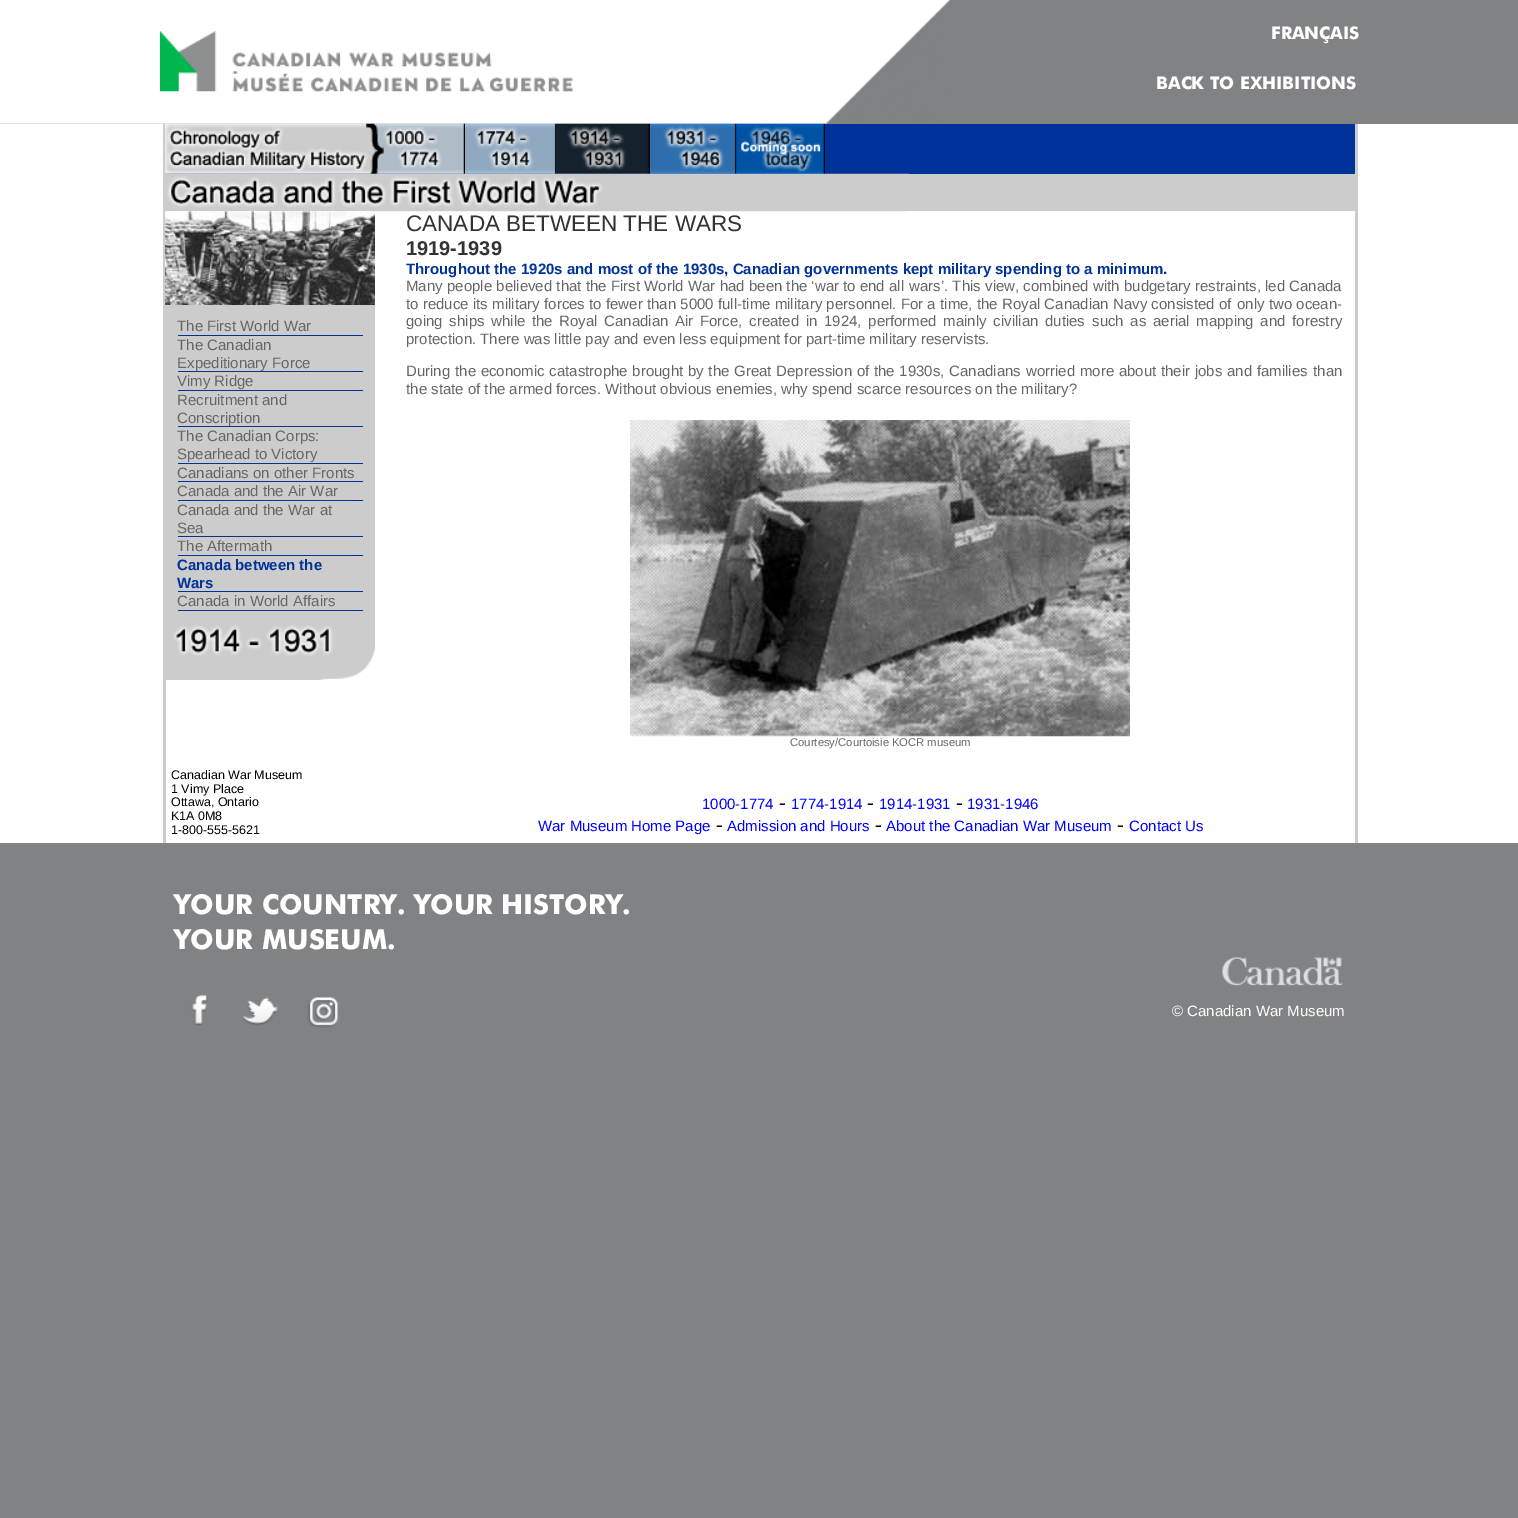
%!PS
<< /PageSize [1518 1518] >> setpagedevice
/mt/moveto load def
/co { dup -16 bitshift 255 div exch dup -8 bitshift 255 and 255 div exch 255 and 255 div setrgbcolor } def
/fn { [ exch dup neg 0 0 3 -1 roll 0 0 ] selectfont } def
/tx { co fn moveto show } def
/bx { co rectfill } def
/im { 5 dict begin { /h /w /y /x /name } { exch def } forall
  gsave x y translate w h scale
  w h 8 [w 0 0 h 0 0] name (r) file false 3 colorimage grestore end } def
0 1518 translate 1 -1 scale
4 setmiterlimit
0 0 1518 1518 16#808284 bx
(media/1.raw) 0 0 950 124 im
(media/2.raw) 160 31 413 61 im
0 124 1518 719 16#FFFFFF bx
1355 124 3 719 16#CCCCCC bx
163 124 3 719 16#CCCCCC bx
165 124 1190 50 16#003399 bx
(media/3.raw) 165 123 210 51 im
(media/4.raw) 375 123 90 51 im
(media/5.raw) 465 123 92 51 im
(media/6.raw) 556 123 94 51 im
(media/7.raw) 650 123 87 51 im
(media/8.raw) 736 123 89 51 im
908 174 447 37 16#CCCCCC bx
(media/9.raw) 165 173 744 39 im
(media/10.raw) 165 211 210 94 im
166 305 209 319 16#CCCCCC bx
178 335 185 1 16#003399 bx
178 371 185 1 16#003399 bx
178 390 185 1 16#003399 bx
178 426 185 1 16#003399 bx
178 463 185 1 16#003399 bx
178 481 185 1 16#003399 bx
178 500 185 1 16#003399 bx
178 536 185 1 16#003399 bx
178 555 185 1 16#003399 bx
178 591 185 1 16#003399 bx
178 610 185 1 16#003399 bx
(media/11.raw) 166 624 209 56 im
(media/12.raw) 630 420 500 317 im
(media/13.raw) 191 994 17 32 im
(media/14.raw) 242 997 36 29 im
(media/15.raw) 307 997 31 31 im
(media/16.raw) 1222 957 121 29 im
(FRANÇAIS) 1271 39 /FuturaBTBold-Bold 17.5 16#FFFFFF tx
(BACK TO EXHIBITIONS) 1156 89 /FuturaBTBold-Bold 17.5 16#FFFFFF tx
(The First World War) 177 331 /LiberationSans-Regular 15 16#666666 tx
(The Canadian) 177 350 /LiberationSans-Regular 15 16#666666 tx
(Expeditionary Force) 177 368 /LiberationSans-Regular 15 16#666666 tx
(Vimy Ridge) 177 386 /LiberationSans-Regular 15 16#666666 tx
(Recruitment and) 177 405 /LiberationSans-Regular 15 16#666666 tx
(Conscription) 177 423 /LiberationSans-Regular 15 16#666666 tx
(The Canadian Corps:) 177 441 /LiberationSans-Regular 15 16#666666 tx
(Spearhead to Victory) 177 459 /LiberationSans-Regular 15 16#666666 tx
(Canadians on other Fronts) 177 478 /LiberationSans-Regular 15 16#666666 tx
(Canada and the Air War) 177 496 /LiberationSans-Regular 15 16#666666 tx
(Canada and the War at) 177 515 /LiberationSans-Regular 15 16#666666 tx
(Sea) 177 533 /LiberationSans-Regular 15 16#666666 tx
(The Aftermath) 177 551 /LiberationSans-Regular 15 16#666666 tx
(Canada between the) 177 570 /LiberationSans-Bold 15 16#003399 tx
(Wars) 177 588 /LiberationSans-Bold 15 16#003399 tx
(Canada in World Affairs) 177 606 /LiberationSans-Regular 15 16#666666 tx
(CANADA BETWEEN THE WARS) 406 231 /LiberationSans-Regular 22.5 16#333333 tx
(1919-1939) 406 255 /LiberationSans-Bold 20 16#333333 tx
(Throughout the 1920s and most of the 1930s, Canadian governments kept military spending to a minimum.) 406 274 /LiberationSans-Bold 15 16#003399 tx
(Many) 406 291 /LiberationSans-Regular 15 16#666666 tx
447 291 mt .1 0 32 (people believed that the First World) widthshow
(War had been the ‘war to end all) 688 291 /LiberationSans-Regular 15 16#666666 tx
909 291 mt .1 0 32 (wars’. This view, combined with) widthshow
(budgetary restraints, led Canada) 1124 291 /LiberationSans-Regular 15 16#666666 tx
(to reduce) 406 309 /LiberationSans-Regular 15 16#666666 tx
473 309 mt .1 0 32 (its military forces to fewer than 5000 full-time military personnel. For a time, the Royal Canadian Navy consisted of) widthshow
(only two ocean-) 1237 309 /LiberationSans-Regular 15 16#666666 tx
406 326 mt 2.5 0 32 (going ships while the) widthshow
559 326 mt 2.5 0 32 (Royal Canadian Air Force, created in) widthshow
824 326 mt 2.5 0 32 (1924, performed mainly civilian duties) widthshow
1092 326 mt 2.5 0 32 (such as aerial mapping and forestry) widthshow
(protection. There was little pay and even less equipment for part-time military reservists.) 406 344 /LiberationSans-Regular 15 16#666666 tx
(During) 406 376 /LiberationSans-Regular 15 16#666666 tx
455 376 mt .5 0 32 (the economic catastrophe brought by the) widthshow
734 376 mt .5 0 32 (Great Depression of the 1930s, Canadians) widthshow
1026 376 mt .5 0 32 (worried more about their jobs and families) widthshow
(than) 1313 376 /LiberationSans-Regular 15 16#666666 tx
(the state of the armed forces. Without obvious enemies, why spend scarce resources on the military?) 406 394 /LiberationSans-Regular 15 16#666666 tx
(Courtesy/Courtoisie KOCR museum) 790 746 /LiberationSans-Regular 11.25 16#666666 tx
(Canadian War Museum) 171 779 /LiberationSans-Regular 12.5 16#000000 tx
(1 Vimy Place) 171 793 /LiberationSans-Regular 12.5 16#000000 tx
(Ottawa, Ontario) 171 806 /LiberationSans-Regular 12.5 16#000000 tx
(K1A 0M8) 171 820 /LiberationSans-Regular 12.5 16#000000 tx
(1-800-555-5621) 171 834 /LiberationSans-Regular 12.5 16#000000 tx
(1000-1774) 702 809 /LiberationSans-Regular 15 16#0000FF tx
(-) 779 809 /LiberationSerif-Regular 20 16#000000 tx
(1774-1914) 791 809 /LiberationSans-Regular 15 16#0000FF tx
(-) 867 809 /LiberationSerif-Regular 20 16#000000 tx
(1914-1931) 879 809 /LiberationSans-Regular 15 16#0000FF tx
(-) 956 809 /LiberationSerif-Regular 20 16#000000 tx
(1931-1946) 967 809 /LiberationSans-Regular 15 16#0000FF tx
(War Museum Home Page) 538 831 /LiberationSans-Regular 15 16#0000FF tx
(-) 716 831 /LiberationSerif-Regular 20 16#000000 tx
(Admission and Hours) 727 831 /LiberationSans-Regular 15 16#0000FF tx
(-) 875 831 /LiberationSerif-Regular 20 16#000000 tx
(About the Canadian War Museum) 886 831 /LiberationSans-Regular 15 16#0000FF tx
(-) 1117 831 /LiberationSerif-Regular 20 16#000000 tx
(Contact Us) 1129 831 /LiberationSans-Regular 15 16#0000FF tx
(YOUR COUNTRY. YOUR HISTORY.) 174 914 /FuturaBTBold-Bold 27.5 16#FFFFFF tx
(YOUR MUSEUM.) 174 949 /FuturaBTBold-Bold 27.5 16#FFFFFF tx
(© Canadian War Museum) 1172 1016 /LiberationSans-Regular 15 16#FFFFFF tx
showpage
